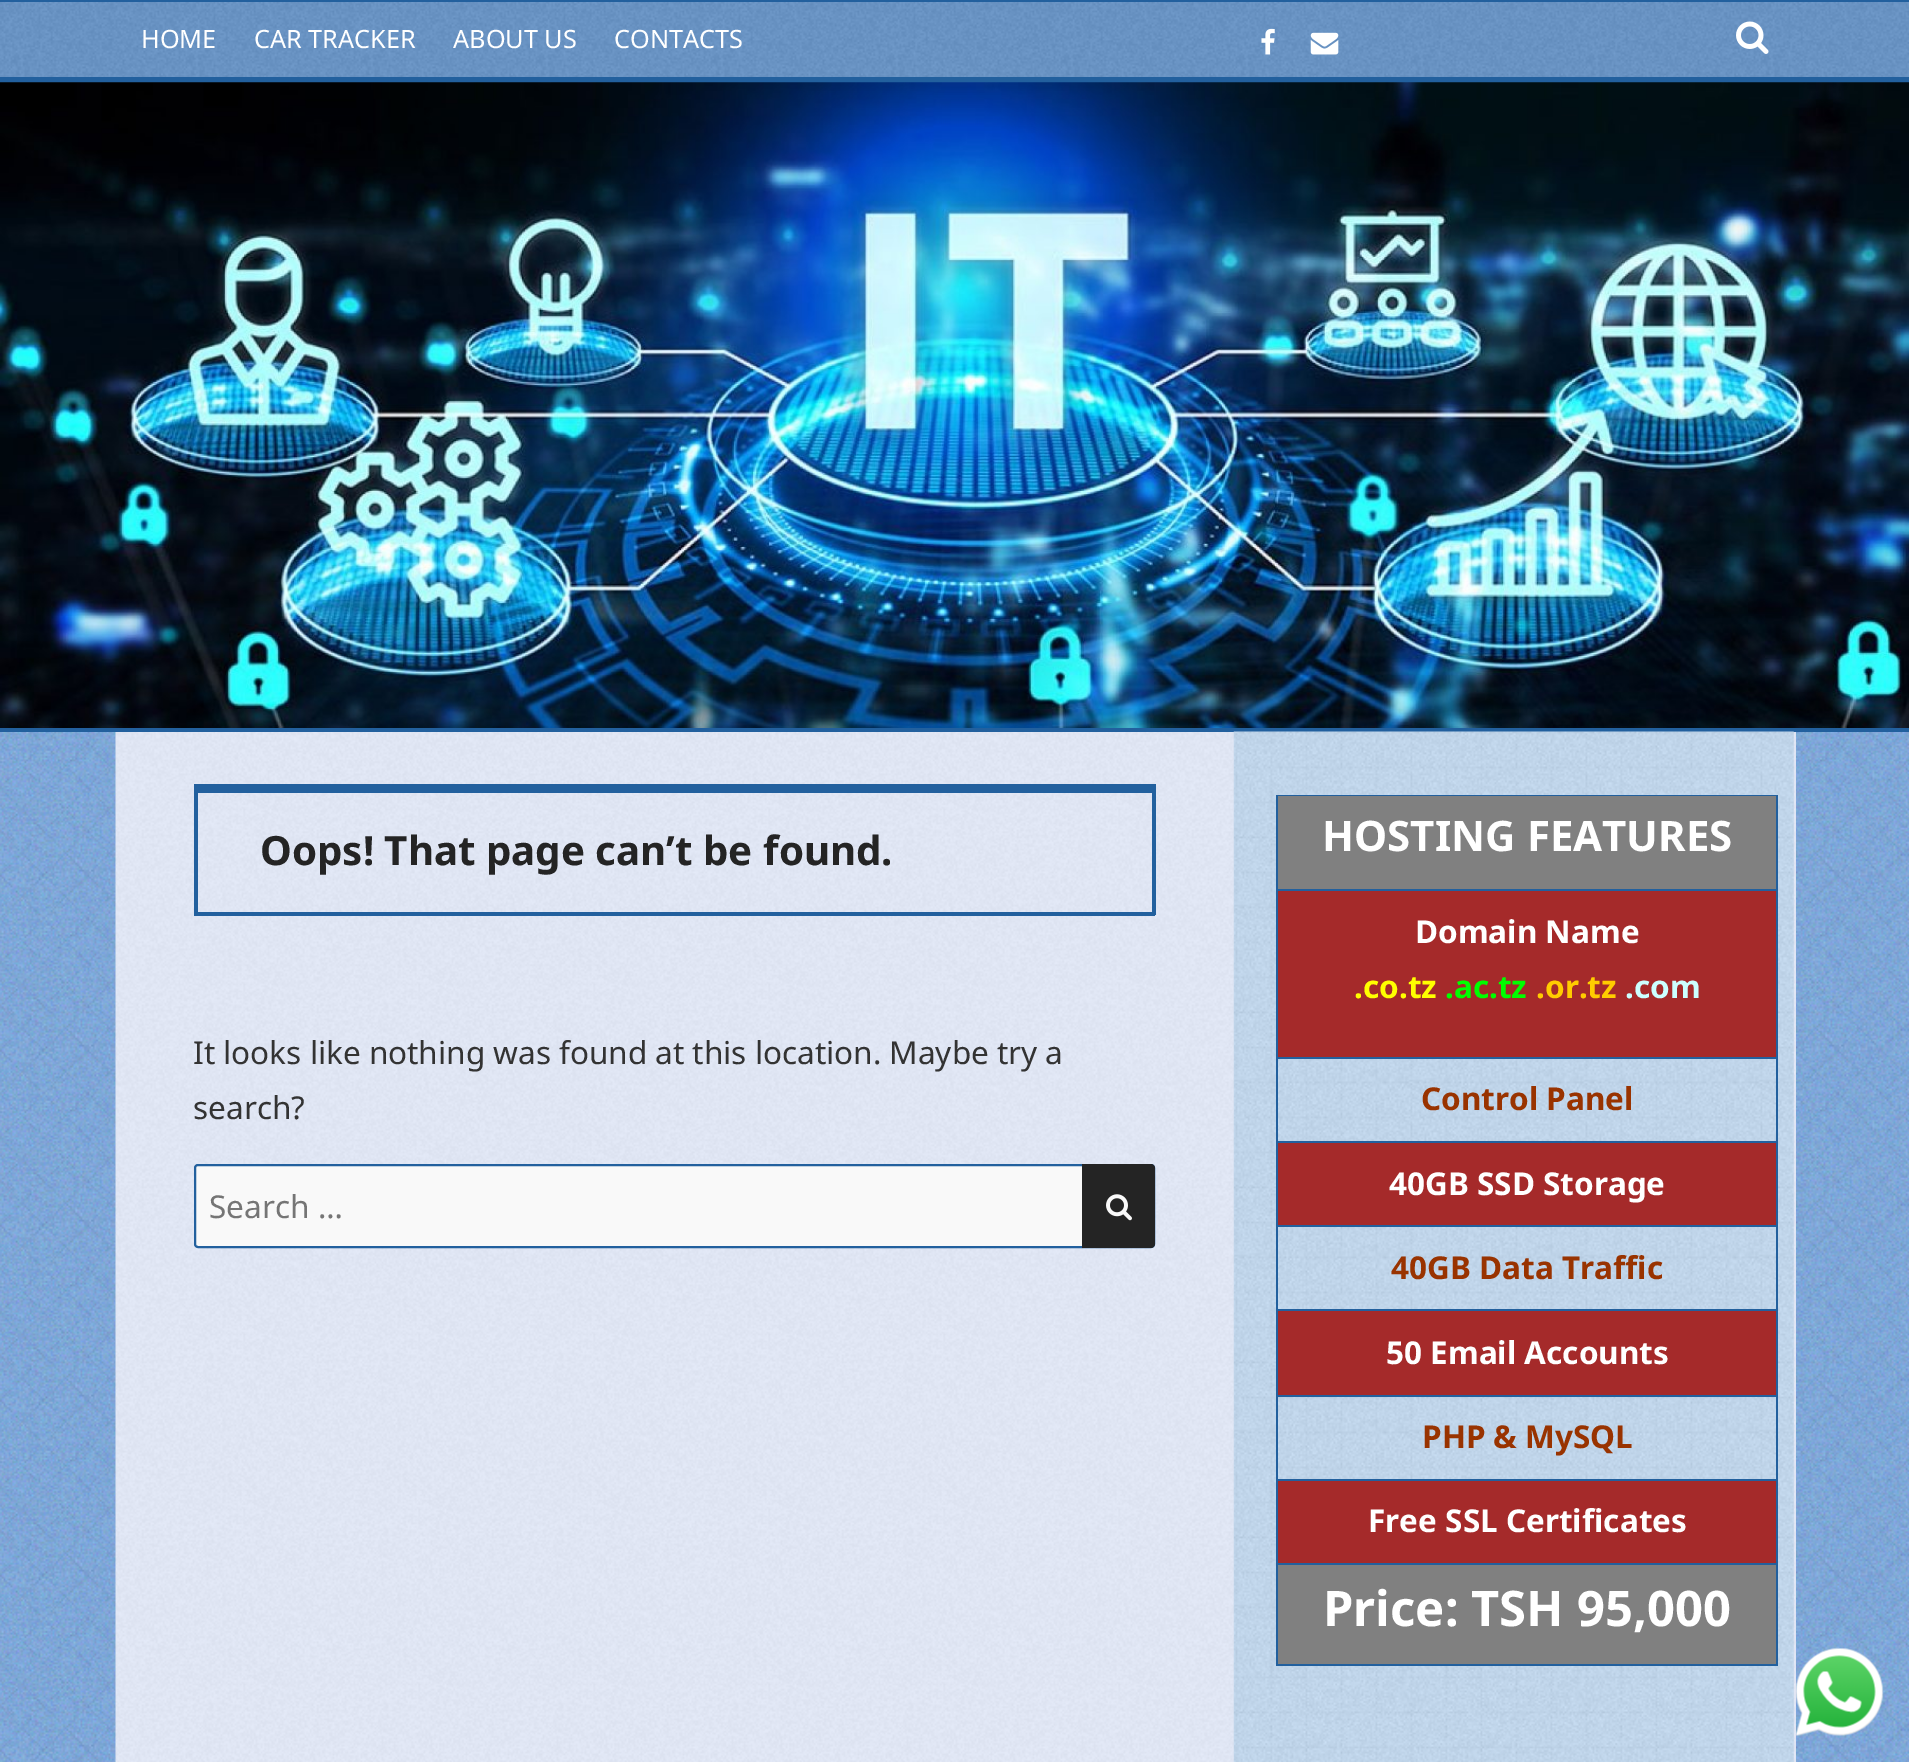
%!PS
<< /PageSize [1909 1762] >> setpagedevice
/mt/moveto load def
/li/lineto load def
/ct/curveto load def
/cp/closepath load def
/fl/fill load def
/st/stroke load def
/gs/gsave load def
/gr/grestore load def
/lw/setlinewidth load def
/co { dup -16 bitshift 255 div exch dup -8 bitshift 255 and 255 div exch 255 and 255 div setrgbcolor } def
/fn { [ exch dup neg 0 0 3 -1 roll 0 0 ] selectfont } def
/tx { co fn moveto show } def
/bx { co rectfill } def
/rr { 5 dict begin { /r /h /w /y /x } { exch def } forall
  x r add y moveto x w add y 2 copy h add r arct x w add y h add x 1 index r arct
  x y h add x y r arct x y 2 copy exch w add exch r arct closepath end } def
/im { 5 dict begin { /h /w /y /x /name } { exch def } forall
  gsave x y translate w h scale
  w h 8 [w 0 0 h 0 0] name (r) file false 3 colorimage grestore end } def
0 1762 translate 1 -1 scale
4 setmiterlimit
0 0 1909 1762 16#FFFFFF bx
(media/1.raw) 0 732 1909 1030 im
(media/2.raw) 0 2 1909 75 im
0 0 1909 2 16#22609E bx
0 77 1909 6 16#22609E bx
(media/3.raw) 1261 28 14 27 im
(media/4.raw) 1310 32 29 23 im
(media/5.raw) 1736 21 33 33 im
0 728 1909 4 16#22609E bx
(media/6.raw) 0 82 1909 646 im
1795 732 1 1030 16#E2E4F7 bx
(media/7.raw) 115 732 1681 1030 im
198 784 954 9 16#22609E bx
1152 784 4 131 16#22609E bx
194 912 961 4 16#22609E bx
194 784 4 131 16#22609E bx
16#F9F9F9 co
195 1165 959 82 3 rr gs fl gr
16#22609E co
2 lw
st
16#242424 co
1082 1164 mt 1151 1164 li 1153 1164 1155 1166 1155 1168 ct 1155 1244 li 1155 1246 1153 1248 1151 1248 ct 1082 1248 li cp fl
(media/8.raw) 1106 1194 26 27 im
(media/9.raw) 1233 731 561 1031 im
1276 795 502 1 16#22609E bx
1276 795 2 871 16#22609E bx
1278 796 498 93 16#808080 bx
1776 796 2 870 16#22609E bx
1278 889 500 2 16#22609E bx
1278 891 498 166 16#A52A2A bx
1278 1057 500 2 16#22609E bx
1278 1141 500 2 16#22609E bx
1278 1143 498 82 16#A52A2A bx
1278 1225 500 2 16#22609E bx
1278 1309 500 2 16#22609E bx
1278 1311 498 84 16#A52A2A bx
1278 1395 500 2 16#22609E bx
1278 1479 500 2 16#22609E bx
1278 1481 498 82 16#A52A2A bx
1278 1563 500 2 16#22609E bx
1278 1565 498 99 16#808080 bx
1278 1664 500 2 16#22609E bx
(media/10.raw) 1795 1648 89 89 im
(HOME) 141 48 /NotoSans-Regular 25.25 16#FFFFFF tx
(CAR TRACKER) 254 48 /NotoSans-Regular 25.25 16#FFFFFF tx
(ABOUT US) 453 48 /NotoSans-Regular 25.25 16#FFFFFF tx
(CONTACTS) 614 48 /NotoSans-Regular 25.25 16#FFFFFF tx
(Oops! That page can’t be found.) 260 865 /NotoSans-Bold 40.25 16#242424 tx
(It looks like nothing was found at this location. Maybe try a) 193 1064 /NotoSans-Regular 31.5 16#333333 tx
(search?) 193 1119 /NotoSans-Regular 31.5 16#333333 tx
(Search …) 209 1218 /NotoSans-Regular 31.5 16#757575 tx
(HOSTING FEATURES) 1322 851 /NotoSans-Bold 42 16#FFFFFF tx
(Domain Name) 1415 943 /NotoSans-Bold 31.5 16#FFFFFF tx
(.co.tz) 1354 998 /NotoSans-Bold 31.5 16#FFFF00 tx
(.ac.tz) 1445 998 /NotoSans-Bold 31.5 16#00FF00 tx
(.or.tz) 1536 998 /NotoSans-Bold 31.5 16#FFCC00 tx
(.com) 1625 998 /NotoSans-Bold 31.5 16#CCFFFF tx
(Control Panel) 1421 1110 /NotoSans-Bold 31.5 16#993300 tx
(40GB SSD Storage) 1389 1195 /NotoSans-Bold 31.5 16#FFFFFF tx
(40GB Data Traffic) 1391 1279 /NotoSans-Bold 31.5 16#993300 tx
(50 Email Accounts) 1386 1364 /NotoSans-Bold 31.5 16#FFFFFF tx
(PHP & MySQL) 1422 1448 /NotoSans-Bold 31.5 16#993300 tx
(Free SSL Certificates) 1368 1532 /NotoSans-Bold 31.5 16#FFFFFF tx
(Price: TSH 95,000) 1323 1626 /NotoSans-Bold 49 16#FFFFFF tx
showpage
